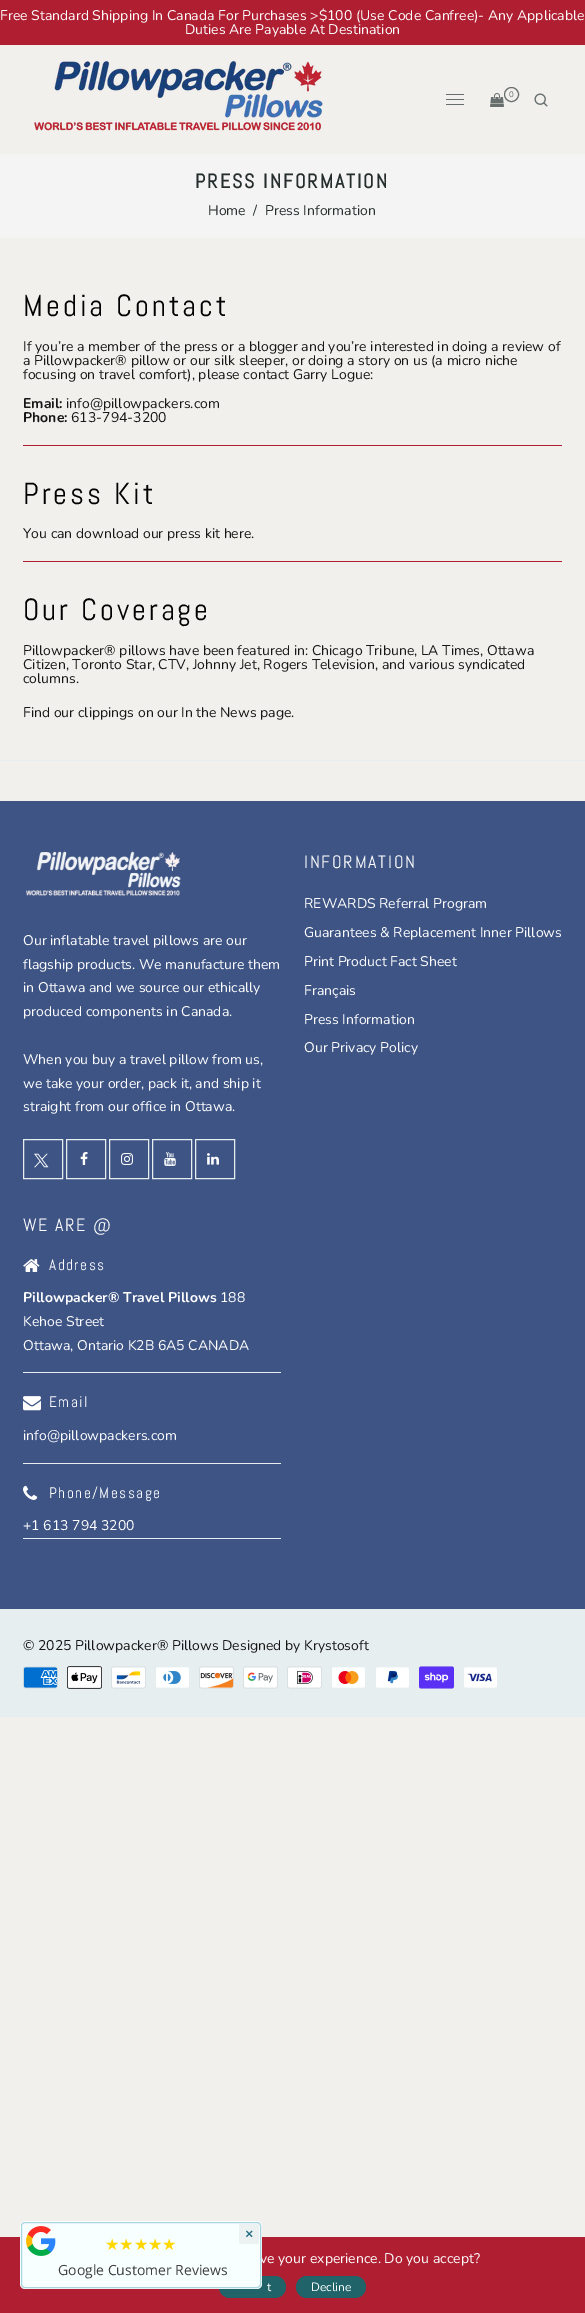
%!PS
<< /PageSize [585 2313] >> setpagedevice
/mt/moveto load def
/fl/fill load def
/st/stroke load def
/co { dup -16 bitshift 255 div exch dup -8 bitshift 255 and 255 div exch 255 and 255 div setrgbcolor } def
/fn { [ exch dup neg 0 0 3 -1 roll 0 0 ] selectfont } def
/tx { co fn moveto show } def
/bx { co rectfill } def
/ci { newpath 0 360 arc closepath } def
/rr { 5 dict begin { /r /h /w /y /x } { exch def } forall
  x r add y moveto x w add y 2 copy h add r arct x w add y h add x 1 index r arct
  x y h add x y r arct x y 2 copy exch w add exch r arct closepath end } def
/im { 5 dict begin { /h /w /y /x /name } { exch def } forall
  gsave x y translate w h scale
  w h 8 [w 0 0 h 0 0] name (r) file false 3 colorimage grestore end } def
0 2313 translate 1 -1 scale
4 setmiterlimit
0 0 585 2313 16#F1F0EC bx
0 0 585 45 16#AF1F31 bx
(media/1.raw) 34 61 289 70 im
446 99 18 1 16#676E6D bx
446 94 18 1 16#676E6D bx
446 104 18 1 16#676E6D bx
(media/2.raw) 490 93 14 14 im
511.5 94.5 7 ci st
(media/3.raw) 534 93 14 14 im
0 154 585 84 16#F4F4F4 bx
23 445 539 1 16#AF1F31 bx
23 561 539 1 16#AF1F31 bx
0 760 585 1 16#E7EEEF bx
0 801 585 808 16#3E5484 bx
(media/4.raw) 26 851 155 45 im
16#E7EEEF co
23.5 1139.5 39 39 rectstroke
(media/5.raw) 34 1153 15 15 im
66.5 1139.5 39 39 rectstroke
(media/6.raw) 80 1152 8 13 im
109.5 1139.5 39 39 rectstroke
(media/7.raw) 121 1153 12 12 im
152.5 1139.5 39 39 rectstroke
(media/8.raw) 164 1152 12 14 im
195.5 1139.5 39 39 rectstroke
(media/9.raw) 207 1153 12 12 im
23 1372 258 1 16#E7EEEF bx
(media/10.raw) 23 1259 17 13 im
23 1463 258 1 16#E7EEEF bx
(media/11.raw) 23 1396 18 15 im
23 1538 258 1 16#E7EEEF bx
(media/12.raw) 23 1485 15 15 im
0 1609 585 108 16#E7EEEF bx
(media/13.raw) 23 1666 35 23 im
(media/14.raw) 67 1666 35 23 im
(media/15.raw) 111 1666 35 23 im
(media/16.raw) 156 1667 33 21 im
(media/17.raw) 199 1666 35 23 im
(media/18.raw) 243 1666 35 23 im
(media/19.raw) 287 1666 35 23 im
(media/20.raw) 332 1667 33 21 im
(media/21.raw) 376 1667 33 21 im
(media/22.raw) 419 1666 35 23 im
(media/23.raw) 464 1667 33 21 im
0 2237 585 76 16#AF1F31 bx
16#206469 co
219 2276 67 22 11 rr fl
296 2276 70 22 11 rr fl
(Free Standard Shipping In Canada For Purchases >$100 \(Use Code Canfree\)- Any Applicable) 0 20 /Nunito-Regular 14 16#FFFFFF tx
(Duties Are Payable At Destination) 185 34 /Nunito-Regular 14 16#FFFFFF tx
(0) 509 97 /Nunito-Regular 8 16#676E6D tx
/Abel-Bold 20 fn
16#262D2D co
195 188 mt 2 0 (PRESS INFORMATION) ashow
(Home) 208 215 /Nunito-Regular 14 16#262D2D tx
(/) 253 215 /Nunito-Regular 14 16#262D2D tx
(Press Information) 265 215 /Nunito-Regular 14 16#262D2D tx
/Abel-Regular 30.5 fn
16#000000 co
23 316 mt 3 0 (Media Contact) ashow
(If you’re a member of the press or a blogger and you’re interested in doing a review of) 23 351 /Nunito-Regular 14 16#171616 tx
(a Pillowpacker® pillow or our silk sleeper, or doing a story on us \(a micro niche) 23 365 /Nunito-Regular 14 16#171616 tx
(focusing on travel comfort\), please contact Garry Logue:) 23 379 /Nunito-Regular 14 16#171616 tx
(Email:) 23 408 /Nunito-Bold 14 16#171616 tx
(info@pillowpackers.com) 66 408 /Nunito-Regular 14 16#171616 tx
(Phone:) 23 422 /Nunito-Bold 14 16#171616 tx
(613-794-3200) 71 422 /Nunito-Regular 14 16#171616 tx
/Abel-Regular 30.5 fn
16#000000 co
23 504 mt 3 0 (Press Kit) ashow
(You can download our press kit here.) 23 538 /Nunito-Regular 14 16#171616 tx
/Abel-Regular 30.5 fn
16#000000 co
23 620 mt 3 0 (Our Coverage) ashow
(Pillowpacker® pillows have been featured in: Chicago Tribune, LA Times, Ottawa) 23 655 /Nunito-Regular 14 16#171616 tx
(Citizen, Toronto Star, CTV, Johnny Jet, Rogers Television, and various syndicated) 23 669 /Nunito-Regular 14 16#171616 tx
(columns.) 23 683 /Nunito-Regular 14 16#171616 tx
(Find our clippings on our) 23 717 /Nunito-Regular 14 16#171616 tx
(In the News) 181 717 /Nunito-Regular 14 16#171616 tx
(page.) 260 717 /Nunito-Regular 14 16#171616 tx
(Our inflatable travel pillows are our) 23 945 /Nunito-Regular 14 16#FFFFFF tx
(flagship products. We manufacture them) 23 969 /Nunito-Regular 14 16#FFFFFF tx
(in Ottawa and we source our ethically) 23 992 /Nunito-Regular 14 16#FFFFFF tx
(produced components in Canada.) 23 1016 /Nunito-Regular 14 16#FFFFFF tx
(When you buy a travel pillow from us,) 23 1064 /Nunito-Regular 14 16#FFFFFF tx
(we take your order, pack it, and ship it) 23 1088 /Nunito-Regular 14 16#FFFFFF tx
(straight from our office in Ottawa.) 23 1111 /Nunito-Regular 14 16#FFFFFF tx
/Abel-Regular 18 fn
304 868 mt 1.75 0 (INFORMATION) ashow
(REWARDS Referral Program) 304 908 /Nunito-Regular 14 16#FFFFFF tx
(Guarantees & Replacement Inner Pillows) 304 937 /Nunito-Regular 14 16#FFFFFF tx
(Print Product Fact Sheet) 304 966 /Nunito-Regular 14 16#FFFFFF tx
(Français) 304 995 /Nunito-Regular 14 16#FFFFFF tx
(Press Information) 304 1024 /Nunito-Regular 14 16#FFFFFF tx
(Our Privacy Policy) 304 1052 /Nunito-Regular 14 16#FFFFFF tx
/Abel-Regular 18 fn
23 1231 mt 1.75 0 (WE ARE @) ashow
/Abel-Regular 15.25 fn
49 1270 mt 1.5 0 (Address) ashow
(Pillowpacker® Travel Pillows) 23 1302 /Nunito-Bold 14 16#FFFFFF tx
(188) 220 1302 /Nunito-Regular 14 16#FFFFFF tx
(Kehoe Street) 23 1326 /Nunito-Regular 14 16#FFFFFF tx
(Ottawa, Ontario K2B 6A5 CANADA) 23 1350 /Nunito-Regular 14 16#FFFFFF tx
/Abel-Regular 15.25 fn
49 1407 mt 1.5 0 (Email) ashow
(info@pillowpackers.com) 23 1440 /Nunito-Regular 14 16#FFFFFF tx
/Abel-Regular 15.25 fn
49 1498 mt 1.5 0 (Phone/Message) ashow
(+1 613 794 3200) 23 1530 /Nunito-Regular 14 16#FFFFFF tx
(© 2025 Pillowpacker® Pillows Designed by Krystosoft) 23 1650 /Nunito-Regular 14 16#171616 tx
(ve your experience. Do you accept?) 260 2263 /Nunito-Regular 14 16#FFFFFF tx
16#F8FFFF co
20 2221 242 68 5 rr fl
16#A9D5DE co
21.5 2222.5 239 65 3.5 rr st
16#ECF2F2 co
239 2224 20 20 2 rr fl
(×) 245 2239 /OpenSans-Bold 14 16#276F86 tx
(★★★★★) 105 2250 /DejaVuSans-Regular 16 16#FFD700 tx
(media/24.raw) 26 2226 30 30 im
(Google Customer Reviews) 58 2275 /OpenSans-Regular 14 16#404040 tx
(t) 267 2291 /Nunito-Regular 12 16#FFFFFF tx
(Decline) 311 2291 /Nunito-Regular 12 16#FFFFFF tx
showpage
